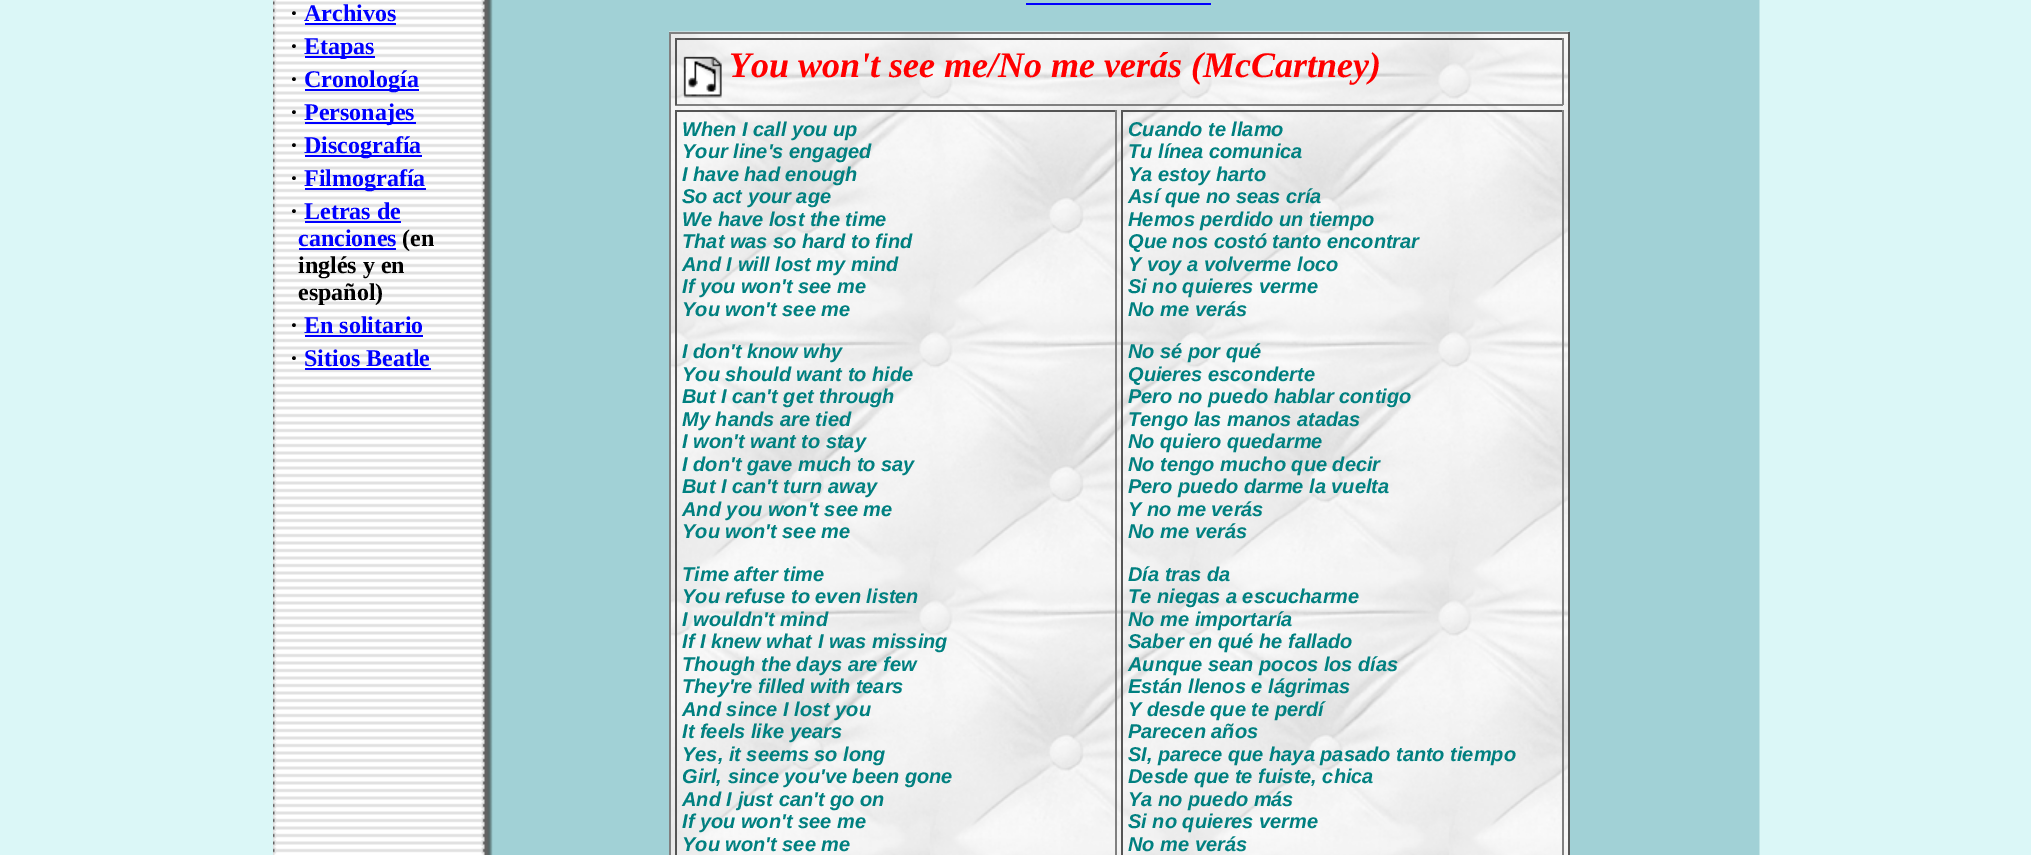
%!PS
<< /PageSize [2031 855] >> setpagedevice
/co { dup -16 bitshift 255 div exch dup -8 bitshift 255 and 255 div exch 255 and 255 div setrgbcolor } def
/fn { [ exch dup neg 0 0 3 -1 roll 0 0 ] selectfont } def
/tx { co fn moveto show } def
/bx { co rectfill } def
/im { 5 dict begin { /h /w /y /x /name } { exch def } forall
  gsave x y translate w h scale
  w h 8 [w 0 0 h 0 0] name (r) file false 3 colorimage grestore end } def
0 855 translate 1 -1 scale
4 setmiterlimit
0 0 2031 855 16#DBF7F7 bx
(media/1.raw) 273 0 1487 855 im
305 23 91 2 16#0000FF bx
305 56 70 2 16#0000FF bx
305 89 114 2 16#0000FF bx
305 122 111 2 16#0000FF bx
305 155 117 2 16#0000FF bx
305 188 121 2 16#0000FF bx
305 221 96 2 16#0000FF bx
299 248 97 2 16#0000FF bx
305 335 118 2 16#0000FF bx
305 368 126 2 16#0000FF bx
1026 3 185 2 16#0000FF bx
(media/2.raw) 669 31 900 824 im
669 32 900 2 16#808080 bx
1568 32 2 823 16#555555 bx
669 32 2 823 16#808080 bx
675 38 888 2 16#555555 bx
1562 38 2 67 16#808080 bx
675 104 888 2 16#808080 bx
675 38 2 67 16#555555 bx
(media/3.raw) 683 56 39 42 im
675 110 441 2 16#555555 bx
1115 110 2 745 16#808080 bx
675 110 2 745 16#555555 bx
1121 110 442 2 16#555555 bx
1562 110 2 745 16#808080 bx
1121 110 2 745 16#555555 bx
(·) 290 21 /LiberationSerif-Bold 24 16#000000 tx
(Archivos) 304 21 /LiberationSerif-Bold 24 16#0000FF tx
(·) 290 54 /LiberationSerif-Bold 24 16#000000 tx
(Etapas) 304 54 /LiberationSerif-Bold 24 16#0000FF tx
(·) 290 87 /LiberationSerif-Bold 24 16#000000 tx
(Cronología) 304 87 /LiberationSerif-Bold 24 16#0000FF tx
(·) 290 120 /LiberationSerif-Bold 24 16#000000 tx
(Personajes) 304 120 /LiberationSerif-Bold 24 16#0000FF tx
(·) 290 153 /LiberationSerif-Bold 24 16#000000 tx
(Discografía) 304 153 /LiberationSerif-Bold 24 16#0000FF tx
(·) 290 186 /LiberationSerif-Bold 24 16#000000 tx
(Filmografía) 304 186 /LiberationSerif-Bold 24 16#0000FF tx
(·) 290 219 /LiberationSerif-Bold 24 16#000000 tx
(Letras de) 304 219 /LiberationSerif-Bold 24 16#0000FF tx
(canciones) 298 246 /LiberationSerif-Bold 24 16#0000FF tx
(\(en) 402 246 /LiberationSerif-Bold 24 16#000000 tx
(inglés y en) 298 273 /LiberationSerif-Bold 24 16#000000 tx
(español\)) 298 300 /LiberationSerif-Bold 24 16#000000 tx
(·) 290 333 /LiberationSerif-Bold 24 16#000000 tx
(En solitario) 304 333 /LiberationSerif-Bold 24 16#0000FF tx
(·) 290 366 /LiberationSerif-Bold 24 16#000000 tx
(Sitios Beatle) 304 366 /LiberationSerif-Bold 24 16#0000FF tx
(You won't see me/No me verás \(McCartney\)) 729 77 /LiberationSerif-BoldItalic 36 16#FF0000 tx
(When I call you up) 682 136 /LiberationSans-BoldItalic 20 16#008080 tx
(Your line's engaged) 682 158 /LiberationSans-BoldItalic 20 16#008080 tx
(I have had enough) 682 181 /LiberationSans-BoldItalic 20 16#008080 tx
(So act your age) 682 203 /LiberationSans-BoldItalic 20 16#008080 tx
(We have lost the time) 682 226 /LiberationSans-BoldItalic 20 16#008080 tx
(That was so hard to find) 682 248 /LiberationSans-BoldItalic 20 16#008080 tx
(And I will lost my mind) 682 271 /LiberationSans-BoldItalic 20 16#008080 tx
(If you won't see me) 682 293 /LiberationSans-BoldItalic 20 16#008080 tx
(You won't see me) 682 316 /LiberationSans-BoldItalic 20 16#008080 tx
(I don't know why) 682 358 /LiberationSans-BoldItalic 20 16#008080 tx
(You should want to hide) 682 381 /LiberationSans-BoldItalic 20 16#008080 tx
(But I can't get through) 682 403 /LiberationSans-BoldItalic 20 16#008080 tx
(My hands are tied) 682 426 /LiberationSans-BoldItalic 20 16#008080 tx
(I won't want to stay) 682 448 /LiberationSans-BoldItalic 20 16#008080 tx
(I don't gave much to say) 682 471 /LiberationSans-BoldItalic 20 16#008080 tx
(But I can't turn away) 682 493 /LiberationSans-BoldItalic 20 16#008080 tx
(And you won't see me) 682 516 /LiberationSans-BoldItalic 20 16#008080 tx
(You won't see me) 682 538 /LiberationSans-BoldItalic 20 16#008080 tx
(Time after time) 682 581 /LiberationSans-BoldItalic 20 16#008080 tx
(You refuse to even listen) 682 603 /LiberationSans-BoldItalic 20 16#008080 tx
(I wouldn't mind) 682 626 /LiberationSans-BoldItalic 20 16#008080 tx
(If I knew what I was missing) 682 648 /LiberationSans-BoldItalic 20 16#008080 tx
(Though the days are few) 682 671 /LiberationSans-BoldItalic 20 16#008080 tx
(They're filled with tears) 682 693 /LiberationSans-BoldItalic 20 16#008080 tx
(And since I lost you) 682 716 /LiberationSans-BoldItalic 20 16#008080 tx
(It feels like years) 682 738 /LiberationSans-BoldItalic 20 16#008080 tx
(Yes, it seems so long) 682 761 /LiberationSans-BoldItalic 20 16#008080 tx
(Girl, since you've been gone) 682 783 /LiberationSans-BoldItalic 20 16#008080 tx
(And I just can't go on) 682 806 /LiberationSans-BoldItalic 20 16#008080 tx
(If you won't see me) 682 828 /LiberationSans-BoldItalic 20 16#008080 tx
(You won't see me) 682 851 /LiberationSans-BoldItalic 20 16#008080 tx
(Cuando te llamo) 1128 136 /LiberationSans-BoldItalic 20 16#008080 tx
(Tu línea comunica) 1128 158 /LiberationSans-BoldItalic 20 16#008080 tx
(Ya estoy harto) 1128 181 /LiberationSans-BoldItalic 20 16#008080 tx
(Así que no seas cría) 1128 203 /LiberationSans-BoldItalic 20 16#008080 tx
(Hemos perdido un tiempo) 1128 226 /LiberationSans-BoldItalic 20 16#008080 tx
(Que nos costó tanto encontrar) 1128 248 /LiberationSans-BoldItalic 20 16#008080 tx
(Y voy a volverme loco) 1128 271 /LiberationSans-BoldItalic 20 16#008080 tx
(Si no quieres verme) 1128 293 /LiberationSans-BoldItalic 20 16#008080 tx
(No me verás) 1128 316 /LiberationSans-BoldItalic 20 16#008080 tx
(No sé por qué) 1128 358 /LiberationSans-BoldItalic 20 16#008080 tx
(Quieres esconderte) 1128 381 /LiberationSans-BoldItalic 20 16#008080 tx
(Pero no puedo hablar contigo) 1128 403 /LiberationSans-BoldItalic 20 16#008080 tx
(Tengo las manos atadas) 1128 426 /LiberationSans-BoldItalic 20 16#008080 tx
(No quiero quedarme) 1128 448 /LiberationSans-BoldItalic 20 16#008080 tx
(No tengo mucho que decir) 1128 471 /LiberationSans-BoldItalic 20 16#008080 tx
(Pero puedo darme la vuelta) 1128 493 /LiberationSans-BoldItalic 20 16#008080 tx
(Y no me verás) 1128 516 /LiberationSans-BoldItalic 20 16#008080 tx
(No me verás) 1128 538 /LiberationSans-BoldItalic 20 16#008080 tx
(Día tras da) 1128 581 /LiberationSans-BoldItalic 20 16#008080 tx
(Te niegas a escucharme) 1128 603 /LiberationSans-BoldItalic 20 16#008080 tx
(No me importaría) 1128 626 /LiberationSans-BoldItalic 20 16#008080 tx
(Saber en qué he fallado) 1128 648 /LiberationSans-BoldItalic 20 16#008080 tx
(Aunque sean pocos los días) 1128 671 /LiberationSans-BoldItalic 20 16#008080 tx
(Están llenos e lágrimas) 1128 693 /LiberationSans-BoldItalic 20 16#008080 tx
(Y desde que te perdí) 1128 716 /LiberationSans-BoldItalic 20 16#008080 tx
(Parecen años) 1128 738 /LiberationSans-BoldItalic 20 16#008080 tx
(SI, parece que haya pasado tanto tiempo) 1128 761 /LiberationSans-BoldItalic 20 16#008080 tx
(Desde que te fuiste, chica) 1128 783 /LiberationSans-BoldItalic 20 16#008080 tx
(Ya no puedo más) 1128 806 /LiberationSans-BoldItalic 20 16#008080 tx
(Si no quieres verme) 1128 828 /LiberationSans-BoldItalic 20 16#008080 tx
(No me verás) 1128 851 /LiberationSans-BoldItalic 20 16#008080 tx
showpage
